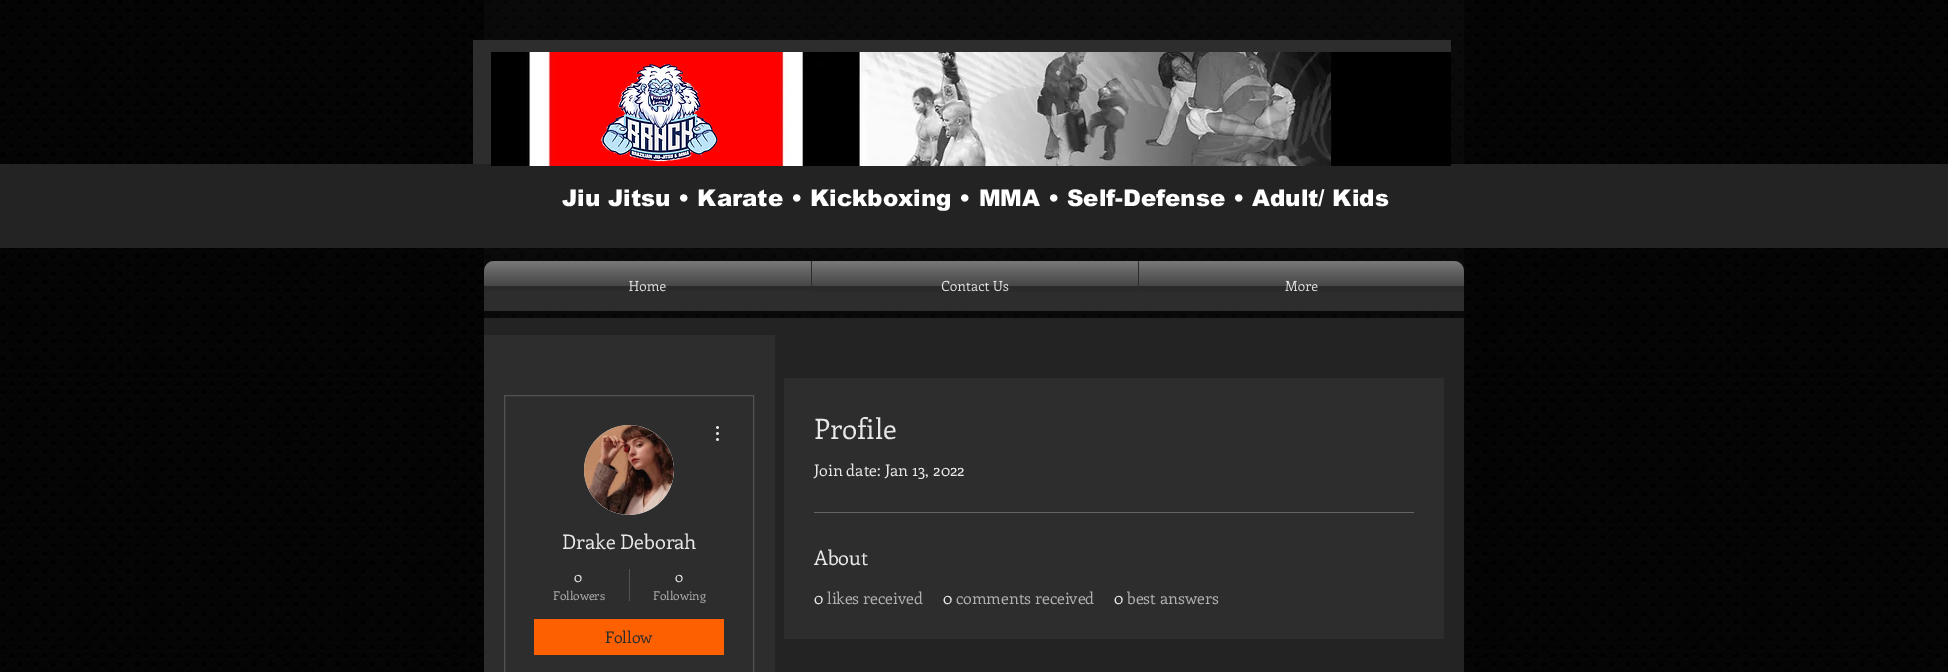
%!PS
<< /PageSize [1948 672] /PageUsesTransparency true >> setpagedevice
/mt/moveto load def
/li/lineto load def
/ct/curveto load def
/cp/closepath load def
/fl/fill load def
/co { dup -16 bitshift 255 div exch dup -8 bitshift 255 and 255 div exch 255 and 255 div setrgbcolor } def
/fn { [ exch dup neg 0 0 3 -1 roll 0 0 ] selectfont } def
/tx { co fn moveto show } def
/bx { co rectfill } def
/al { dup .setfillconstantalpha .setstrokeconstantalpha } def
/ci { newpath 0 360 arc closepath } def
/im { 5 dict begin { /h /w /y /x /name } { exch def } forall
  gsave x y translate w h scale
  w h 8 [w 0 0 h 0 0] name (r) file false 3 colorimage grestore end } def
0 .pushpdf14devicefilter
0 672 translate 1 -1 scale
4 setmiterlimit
0 0 1948 672 16#000000 bx
(media/1.raw) 0 0 1948 672 im
0.11 al
484 0 980 318 16#333333 bx
1 al
473 40 978 124 16#2D2D2D bx
0 164 1948 84 16#242323 bx
(media/2.raw) 491 52 960 114 im
(media/3.raw) 601 64 117 98 im
(media/4.raw) 484 261 980 10 im
16#2D2D2D co
494 261 mt 811 261 li 811 311 li 484 311 li 484 271 li 484 265.5 488.5 261 494 261 ct cp fl
811 261 327 50 16#2D2D2D bx
1138 261 mt 1454 261 li 1459.5 261 1464 265.5 1464 271 ct 1464 311 li 1138 311 li cp fl
484 318 980 354 16#232323 bx
484 335 291 337 16#2D2D2D bx
16#525252 co
504.5 395.5 249 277 rectstroke
16#D8D8D8 co
629 470 45 ci fl
(media/8.raw) 584 425 90 90 im
(media/9.raw) 716 426 3 15 im
629 569 1 32 16#525252 bx
534 619 190 36 16#FC6000 bx
784 378 660 261 16#2D2D2D bx
814 512 600 1 16#656565 bx
(Jiu Jitsu • Karate • Kickboxing • MMA • Self-Defense • Adult/ Kids) 562 206 /arial-Black 23 16#FFFFFF tx
(Home) 629 291 /Enriqueta-Regular 14 16#E8E8E8 tx
(media/5.raw) 484 261 327 30 im
(Contact Us) 941 291 /Enriqueta-Regular 14 16#E8E8E8 tx
(media/6.raw) 812 261 326 31 im
(More) 1285 291 /Enriqueta-Regular 14 16#E8E8E8 tx
(media/7.raw) 1139 261 325 31 im
(Drake Deborah) 562 549 /Enriqueta-Regular 20 16#E8E8E8 tx
(0) 574 582 /Enriqueta-Regular 14 16#E8E8E8 tx
(Followers) 553 600 /Enriqueta-Regular 12 16#B0B0B0 tx
(0) 675 582 /Enriqueta-Regular 14 16#E8E8E8 tx
(Following) 653 600 /Enriqueta-Regular 12 16#B0B0B0 tx
(Follow) 605 643 /Enriqueta-Regular 16 16#2D2D2D tx
(Profile) 814 439 /Enriqueta-Regular 28 16#E8E8E8 tx
(Join date: Jan 13, 2022) 814 476 /Enriqueta-Regular 16 16#E8E8E8 tx
(About) 814 565 /Enriqueta-Regular 20 16#E8E8E8 tx
(0) 814 604 /Enriqueta-Regular 16 16#E8E8E8 tx
(likes received) 827 604 /Enriqueta-Regular 16 16#B0B0B0 tx
(0) 943 604 /Enriqueta-Regular 16 16#E8E8E8 tx
(comments received) 956 604 /Enriqueta-Regular 16 16#B0B0B0 tx
(0) 1114 604 /Enriqueta-Regular 16 16#E8E8E8 tx
(best answers) 1127 604 /Enriqueta-Regular 16 16#B0B0B0 tx
.poppdf14devicefilter showpage
